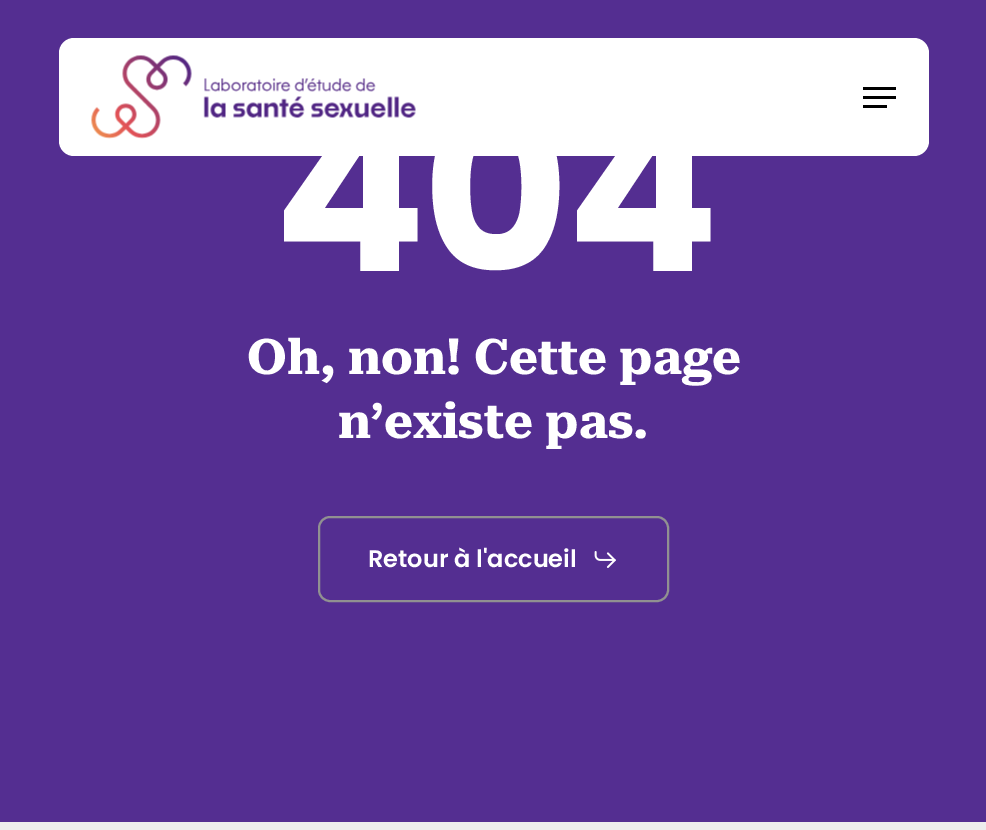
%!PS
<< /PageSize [986 830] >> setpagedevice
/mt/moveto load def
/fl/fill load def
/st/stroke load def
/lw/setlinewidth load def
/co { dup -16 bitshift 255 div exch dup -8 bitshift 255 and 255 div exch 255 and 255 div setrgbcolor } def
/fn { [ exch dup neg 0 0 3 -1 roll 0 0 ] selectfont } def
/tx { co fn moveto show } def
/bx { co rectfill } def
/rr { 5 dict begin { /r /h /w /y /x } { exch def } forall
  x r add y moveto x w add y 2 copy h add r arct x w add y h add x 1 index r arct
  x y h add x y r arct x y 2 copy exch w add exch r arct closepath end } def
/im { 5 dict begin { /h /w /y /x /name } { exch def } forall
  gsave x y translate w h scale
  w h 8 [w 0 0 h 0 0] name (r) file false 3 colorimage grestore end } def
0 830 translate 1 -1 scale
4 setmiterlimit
0 0 986 830 16#EDEDED bx
0 0 986 822 16#542E91 bx
16#FFFFFF co
59 38 870 118 15 rr fl
863 87 33 3 16#000000 bx
863 105 24 3 16#000000 bx
863 96 33 3 16#000000 bx
16#919191 co
2 lw
319 517 349 84 11 rr st
(media/2.raw) 594 551 22 17 im
/Poppins-Bold 227 fn
16#FFFFFF co
273 271 mt -4.5 0 (404) ashow
(media/1.raw) 91 55 325 84 im
(Oh, non! Cette page) 247 374 /RobotoSerif-Bold 49.4 16#FFFFFF tx
(n’existe pas.) 338 438 /RobotoSerif-Bold 49.4 16#FFFFFF tx
(Retour à l'accueil) 368 567 /Poppins-SemiBold 24 16#FFFFFF tx
showpage
